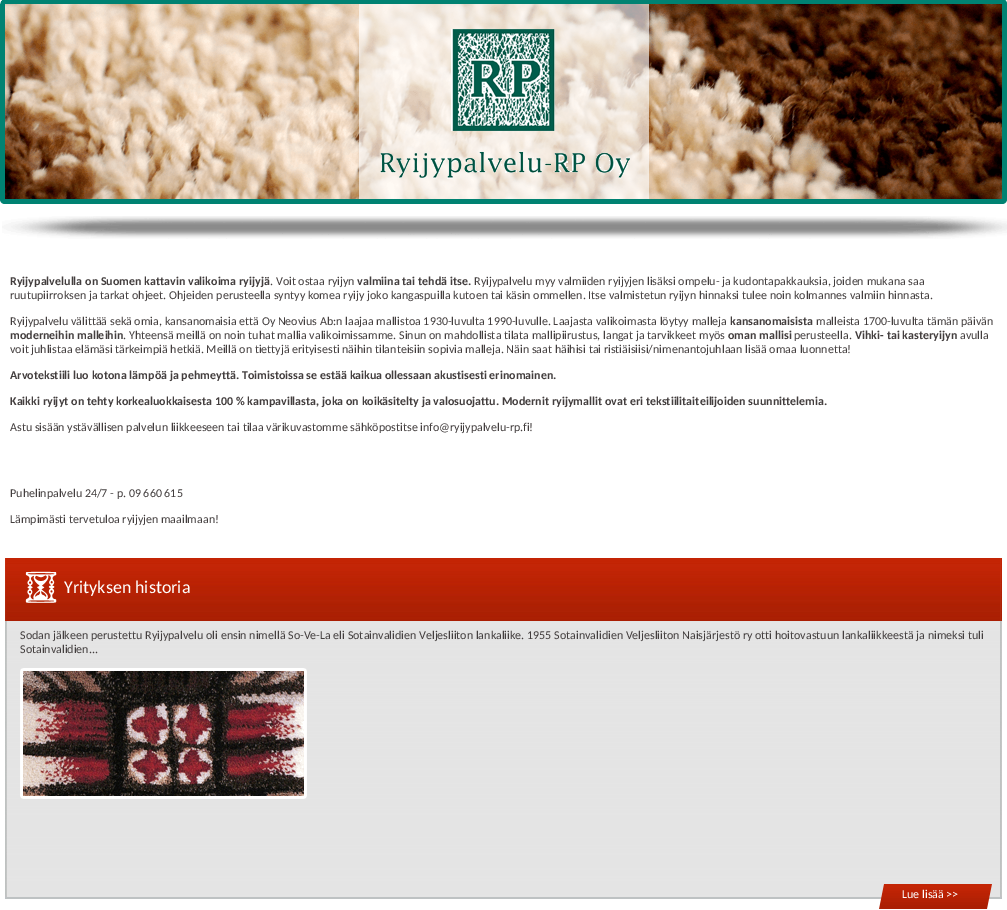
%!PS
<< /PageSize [1007 910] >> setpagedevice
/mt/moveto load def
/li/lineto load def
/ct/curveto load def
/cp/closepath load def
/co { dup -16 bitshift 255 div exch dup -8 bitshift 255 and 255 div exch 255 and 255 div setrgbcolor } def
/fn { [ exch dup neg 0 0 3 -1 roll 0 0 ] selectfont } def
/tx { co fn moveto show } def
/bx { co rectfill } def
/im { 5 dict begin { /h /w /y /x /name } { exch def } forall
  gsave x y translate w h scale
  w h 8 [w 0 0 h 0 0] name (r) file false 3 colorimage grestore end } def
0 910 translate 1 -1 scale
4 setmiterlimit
0 0 1007 910 16#FFFFFF bx
16#008272 co
5 -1 mt 1002 -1 li 1005 -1 1007 1 1007 4 ct 1007 199 li 1007 202 1005 204 1002 204 ct 5 204 li 2 204 0 202 0 199 ct 0 4 li 0 1 2 -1 5 -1 ct cp 5 -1 mt 1002 -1 li 1002 199 li 0 199 li 0 4 li 0 1 2 -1 5 -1 ct cp eofill
(media/1.raw) 0 0 1002 199 im
(media/2.raw) 359 4 290 195 im
(media/3.raw) 2 216 1005 23 im
(media/4.raw) 5 558 997 341 im
(media/5.raw) 25 571 32 32 im
(media/6.raw) 20 668 287 131 im
(media/7.raw) 879 884 113 25 im
(Ryijypalvelulla on Suomen kattavin valikoima ryijyjä) 10 285 /Carlito-Bold 12 16#433E3E tx
(. Voit ostaa ryijyn) 270 285 /Carlito-Regular 12 16#433E3E tx
(valmiina tai tehdä itse.) 357 285 /Carlito-Bold 12 16#433E3E tx
(Ryijypalvelu myy valmiiden ryijyjen lisäksi ompelu- ja kudontapakkauksia, joiden mukana saa) 474 285 /Carlito-Regular 12 16#433E3E tx
(ruutupiirroksen ja tarkat ohjeet. Ohjeiden perusteella syntyy komea ryijy joko kangaspuilla kutoen tai käsin ommellen. Itse valmistetun ryijyn hinnaksi tulee noin kolmannes valmiin hinnasta.) 10 299 /Carlito-Regular 12 16#433E3E tx
(Ryijypalvelu välittää sekä omia, kansanomaisia että Oy Neovius Ab:n laajaa mallistoa 1930-luvulta 1990-luvulle. Laajasta valikoimasta löytyy malleja) 10 325 /Carlito-Regular 12 16#433E3E tx
(kansanomaisista) 730 325 /Carlito-Bold 12 16#433E3E tx
(malleista 1700-luvulta tämän päivän) 816 325 /Carlito-Regular 12 16#433E3E tx
(moderneihin malleihin) 10 339 /Carlito-Bold 12 16#433E3E tx
(. Yhteensä meillä on noin tuhat mallia valikoimissamme. Sinun on mahdollista tilata mallipiirustus, langat ja tarvikkeet myös) 123 339 /Carlito-Regular 12 16#433E3E tx
(oman mallisi) 728 339 /Carlito-Bold 12 16#433E3E tx
(perusteella.) 794 339 /Carlito-Regular 12 16#433E3E tx
(Vihki- tai kasteryijyn) 855 339 /Carlito-Bold 12 16#433E3E tx
(avulla) 960 339 /Carlito-Regular 12 16#433E3E tx
(voit juhlistaa elämäsi tärkeimpiä hetkiä. Meillä on tiettyjä erityisesti näihin tilanteisiin sopivia malleja. Näin saat häihisi tai ristiäisiisi/nimenantojuhlaan lisää omaa luonnetta!) 10 353 /Carlito-Regular 12 16#433E3E tx
(Arvotekstiili luo kotona lämpöä ja pehmeyttä. Toimistoissa se estää kaikua ollessaan akustisesti erinomainen.) 10 379 /Carlito-Bold 12 16#433E3E tx
(Kaikki ryijyt on tehty korkealuokkaisesta 100 % kampavillasta, joka on koikäsitelty ja valosuojattu. Modernit ryijymallit ovat eri tekstiilitaiteilijoiden suunnittelemia.) 10 405 /Carlito-Bold 12 16#433E3E tx
(Astu sisään ystävällisen palvelun liikkeeseen tai tilaa värikuvastomme sähköpostitse info@ryijypalvelu-rp.fi!) 10 431 /Carlito-Regular 12 16#433E3E tx
(Puhelinpalvelu 24/7 - p. 09 660 615) 10 497 /Carlito-Regular 12 16#433E3E tx
(Lämpimästi tervetuloa ryijyjen maailmaan!) 10 523 /Carlito-Regular 12 16#433E3E tx
(Yrityksen historia) 64 593 /Carlito-Regular 18 16#FFFFFF tx
(Sodan jälkeen perustettu Ryijypalvelu oli ensin nimellä So-Ve-La eli Sotainvalidien Veljesliiton lankaliike. 1955 Sotainvalidien Veljesliiton Naisjärjestö ry otti hoitovastuun lankaliikkeestä ja nimeksi tuli) 20 639 /Carlito-Regular 12 16#433E3E tx
(Sotainvalidien...) 20 653 /Carlito-Regular 12 16#433E3E tx
(Lue lisää >>) 902 898 /Carlito-Regular 12 16#FFFFFF tx
showpage
